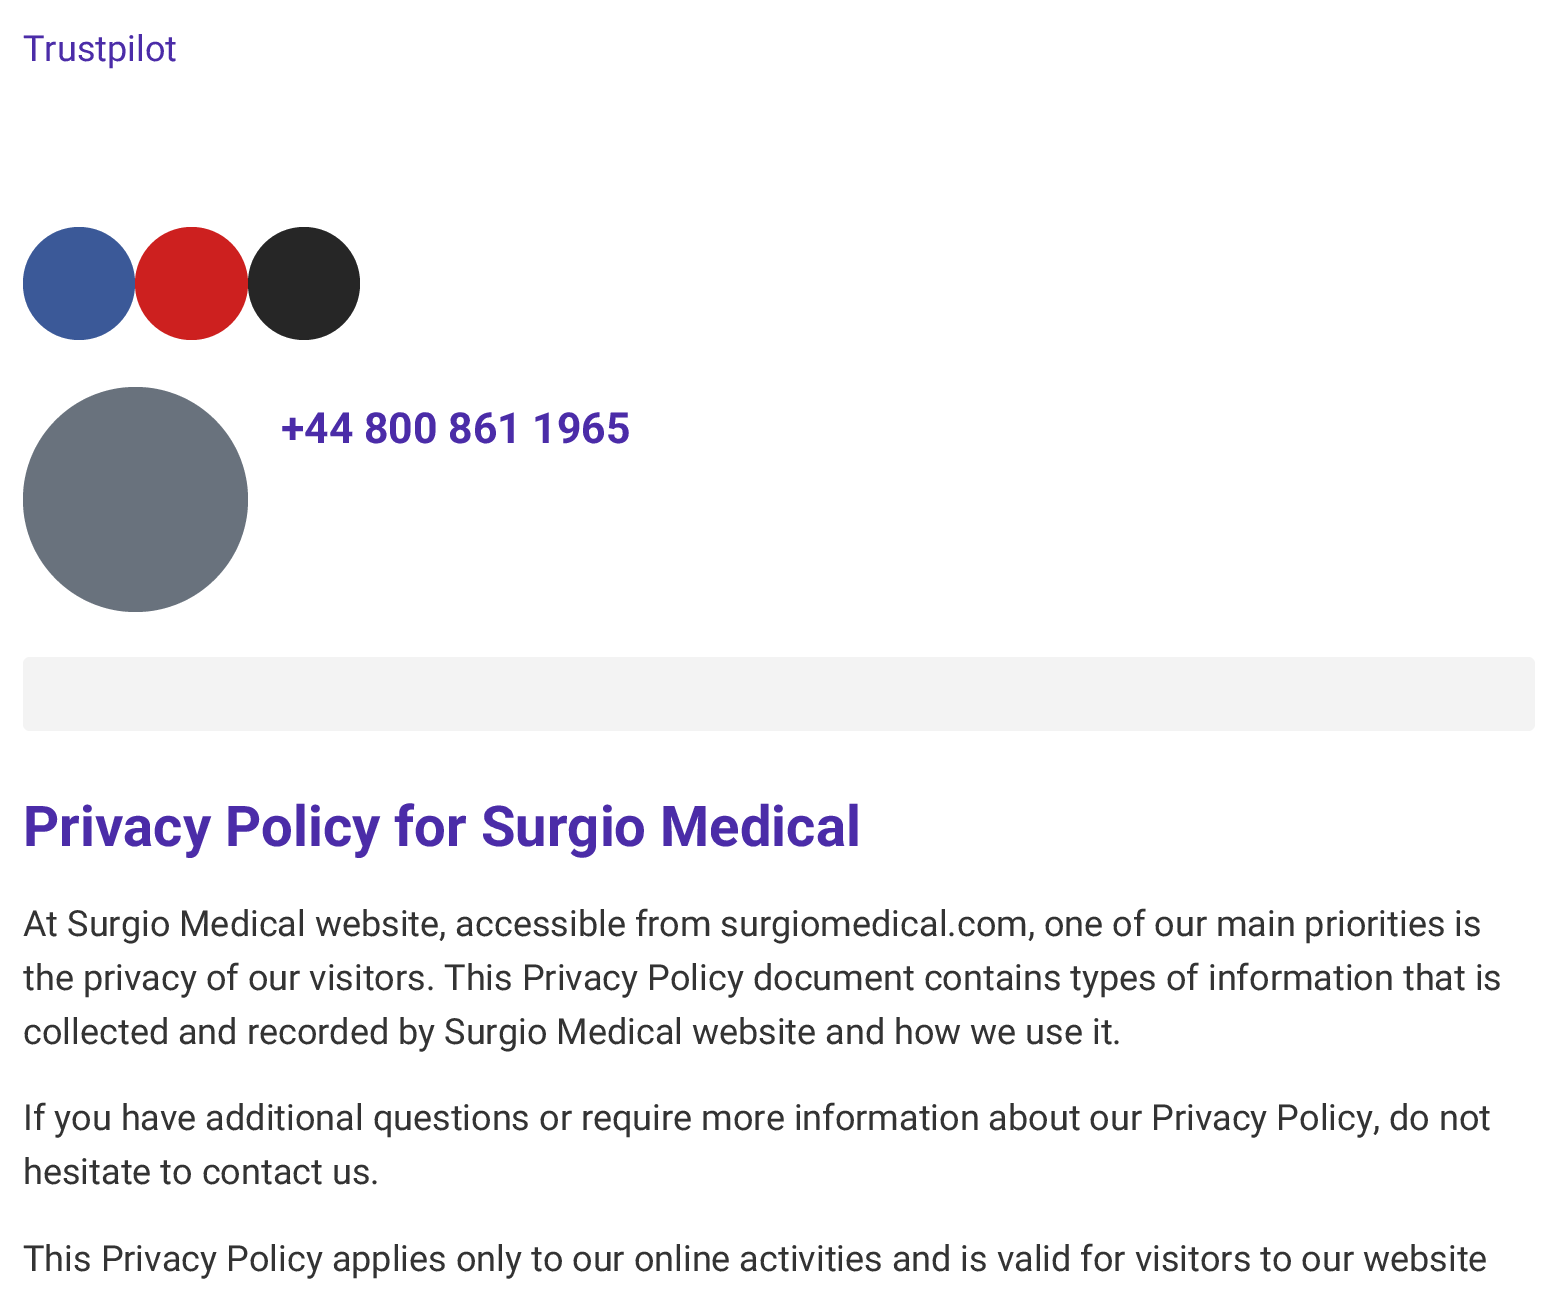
%!PS
<< /PageSize [1556 1296] >> setpagedevice
/fl/fill load def
/co { dup -16 bitshift 255 div exch dup -8 bitshift 255 and 255 div exch 255 and 255 div setrgbcolor } def
/fn { [ exch dup neg 0 0 3 -1 roll 0 0 ] selectfont } def
/tx { co fn moveto show } def
/bx { co rectfill } def
/ci { newpath 0 360 arc closepath } def
/rr { 5 dict begin { /r /h /w /y /x } { exch def } forall
  x r add y moveto x w add y 2 copy h add r arct x w add y h add x 1 index r arct
  x y h add x y r arct x y 2 copy exch w add exch r arct closepath end } def
0 1296 translate 1 -1 scale
4 setmiterlimit
0 0 1556 1296 16#FFFFFF bx
16#3B5998 co
23 227 112 113 56 rr fl
16#CD201F co
191.5 283.5 56.5 ci fl
16#262626 co
248 227 112 113 56 rr fl
16#69727D co
135.5 499.5 112.5 ci fl
16#F3F3F3 co
23 657 1512 74 7 rr fl
(Trustpilot) 23 61 /Roboto-Regular 36 16#4B2CA8 tx
(+44 800 861 1965) 281 443 /Roboto-Bold 42.75 16#4B2CA8 tx
(Privacy Policy for Surgio Medical) 23 846 /Roboto-Bold 56.25 16#4B2CA8 tx
(At Surgio Medical website, accessible from surgiomedical.com, one of our main priorities is) 23 936 /Roboto-Regular 36 16#333333 tx
(the privacy of our visitors. This Privacy Policy document contains types of information that is) 23 990 /Roboto-Regular 36 16#333333 tx
(collected and recorded by Surgio Medical website and how we use it.) 23 1044 /Roboto-Regular 36 16#333333 tx
(If you have additional questions or require more information about our Privacy Policy, do not) 23 1130 /Roboto-Regular 36 16#333333 tx
(hesitate to contact us.) 23 1184 /Roboto-Regular 36 16#333333 tx
(This Privacy Policy applies only to our online activities and is valid for visitors to our website) 23 1271 /Roboto-Regular 36 16#333333 tx
showpage
